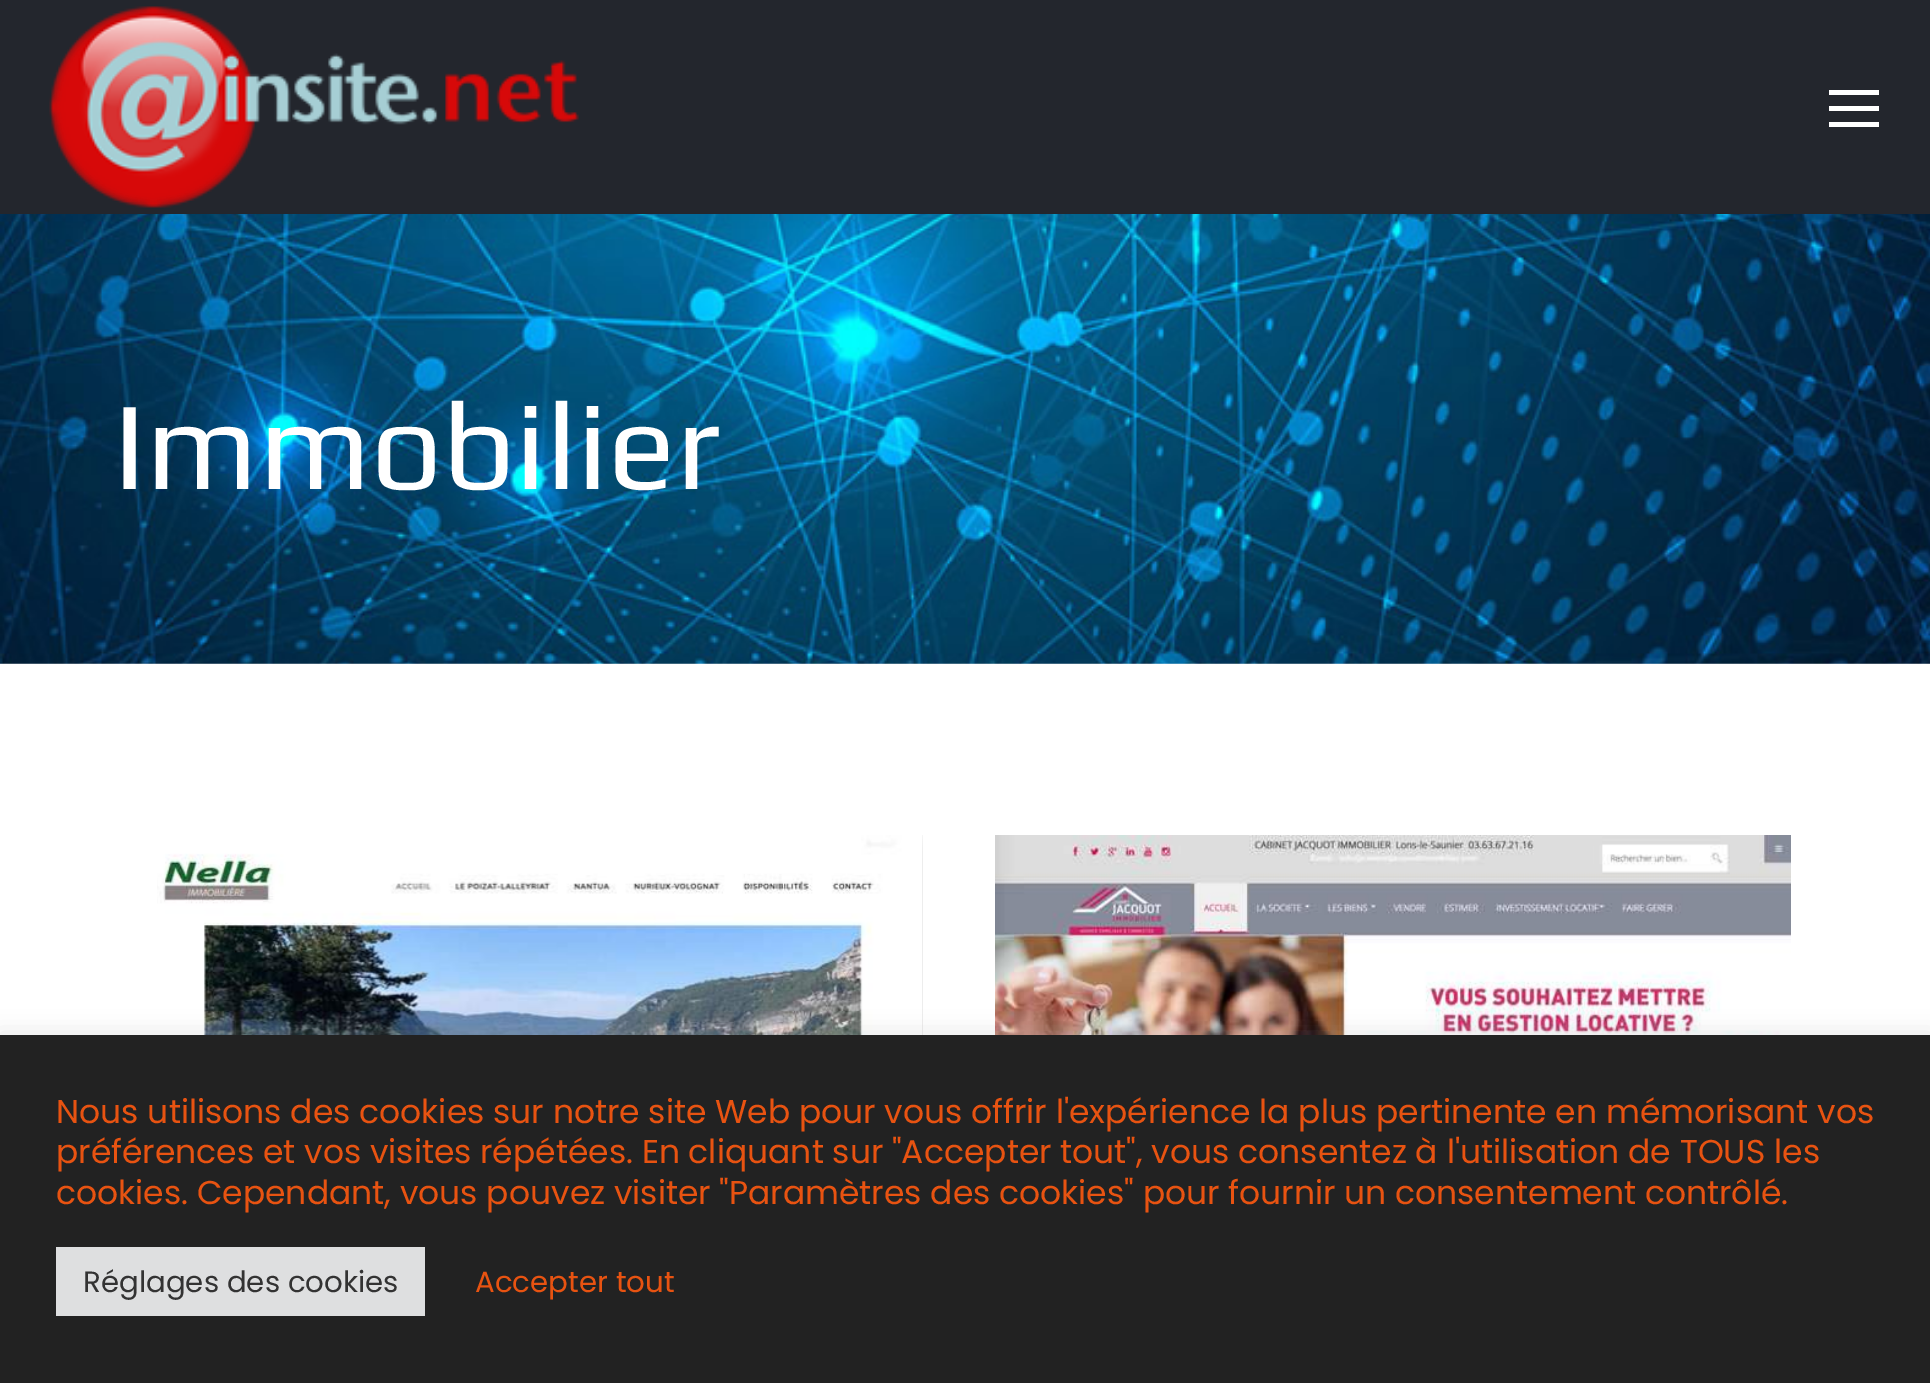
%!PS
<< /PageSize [1930 1383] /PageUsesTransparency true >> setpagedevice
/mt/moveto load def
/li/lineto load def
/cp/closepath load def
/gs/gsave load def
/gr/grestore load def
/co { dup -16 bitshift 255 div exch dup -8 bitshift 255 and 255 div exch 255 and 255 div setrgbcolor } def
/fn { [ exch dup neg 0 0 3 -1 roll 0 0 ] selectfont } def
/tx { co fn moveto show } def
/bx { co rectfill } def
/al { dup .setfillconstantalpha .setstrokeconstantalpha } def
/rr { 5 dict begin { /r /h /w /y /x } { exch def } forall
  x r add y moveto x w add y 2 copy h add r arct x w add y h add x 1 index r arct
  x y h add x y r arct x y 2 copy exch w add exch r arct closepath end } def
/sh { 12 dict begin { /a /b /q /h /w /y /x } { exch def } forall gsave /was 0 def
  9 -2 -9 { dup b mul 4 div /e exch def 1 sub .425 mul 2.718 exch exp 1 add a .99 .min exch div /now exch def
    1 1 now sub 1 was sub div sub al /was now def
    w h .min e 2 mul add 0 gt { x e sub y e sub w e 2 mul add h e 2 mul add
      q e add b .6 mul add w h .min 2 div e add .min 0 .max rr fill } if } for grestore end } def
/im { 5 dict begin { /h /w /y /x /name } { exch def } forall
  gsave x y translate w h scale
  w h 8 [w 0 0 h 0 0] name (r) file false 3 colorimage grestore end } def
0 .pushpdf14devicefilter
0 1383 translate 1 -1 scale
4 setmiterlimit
0 0 1930 1383 16#FFFFFF bx
(media/2.raw) 0 214 1930 450 im
16#000000 co
-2 -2 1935 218 0 17 .07 sh
0 0 1930 214 16#23262D bx
(media/1.raw) 49 6 530 202 im
1829 90 50 5 16#FFFFFF bx
1829 106 50 5 16#FFFFFF bx
1829 122 50 5 16#FFFFFF bx
gs
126 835 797 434 rectclip
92 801 mt 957 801 li 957 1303 li 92 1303 li cp 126 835 mt 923 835 li 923 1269 li 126 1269 li cp eoclip newpath
16#000000 co
126 835 797 434 0 11 .5 sh
gr
(media/3.raw) 157 835 766 200 im
(media/4.raw) 995 835 796 200 im
16#ACABAB co
0 1033 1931 349 0 11 .3 sh
0 1035 1930 348 16#222222 bx
56 1247 369 69 16#DEDFE0 bx
(Immobilier) 113 489 /Play-Regular 126 16#FFFFFF tx
(Nous utilisons des cookies sur notre site Web pour vous offrir l'expérience la plus pertinente en mémorisant vos) 56 1123 /Poppins-Regular 33 16#E85311 tx
(préférences et vos visites répétées. En cliquant sur "Accepter tout", vous consentez à l'utilisation de TOUS les) 56 1163 /Poppins-Regular 33 16#E85311 tx
(cookies. Cependant, vous pouvez visiter "Paramètres des cookies" pour fournir un consentement contrôlé.) 56 1204 /Poppins-Regular 33 16#E85311 tx
(Réglages des cookies) 83 1292 /Poppins-Regular 29.25 16#333333 tx
(Accepter tout) 475 1292 /Poppins-Regular 29.25 16#E85311 tx
.poppdf14devicefilter showpage
